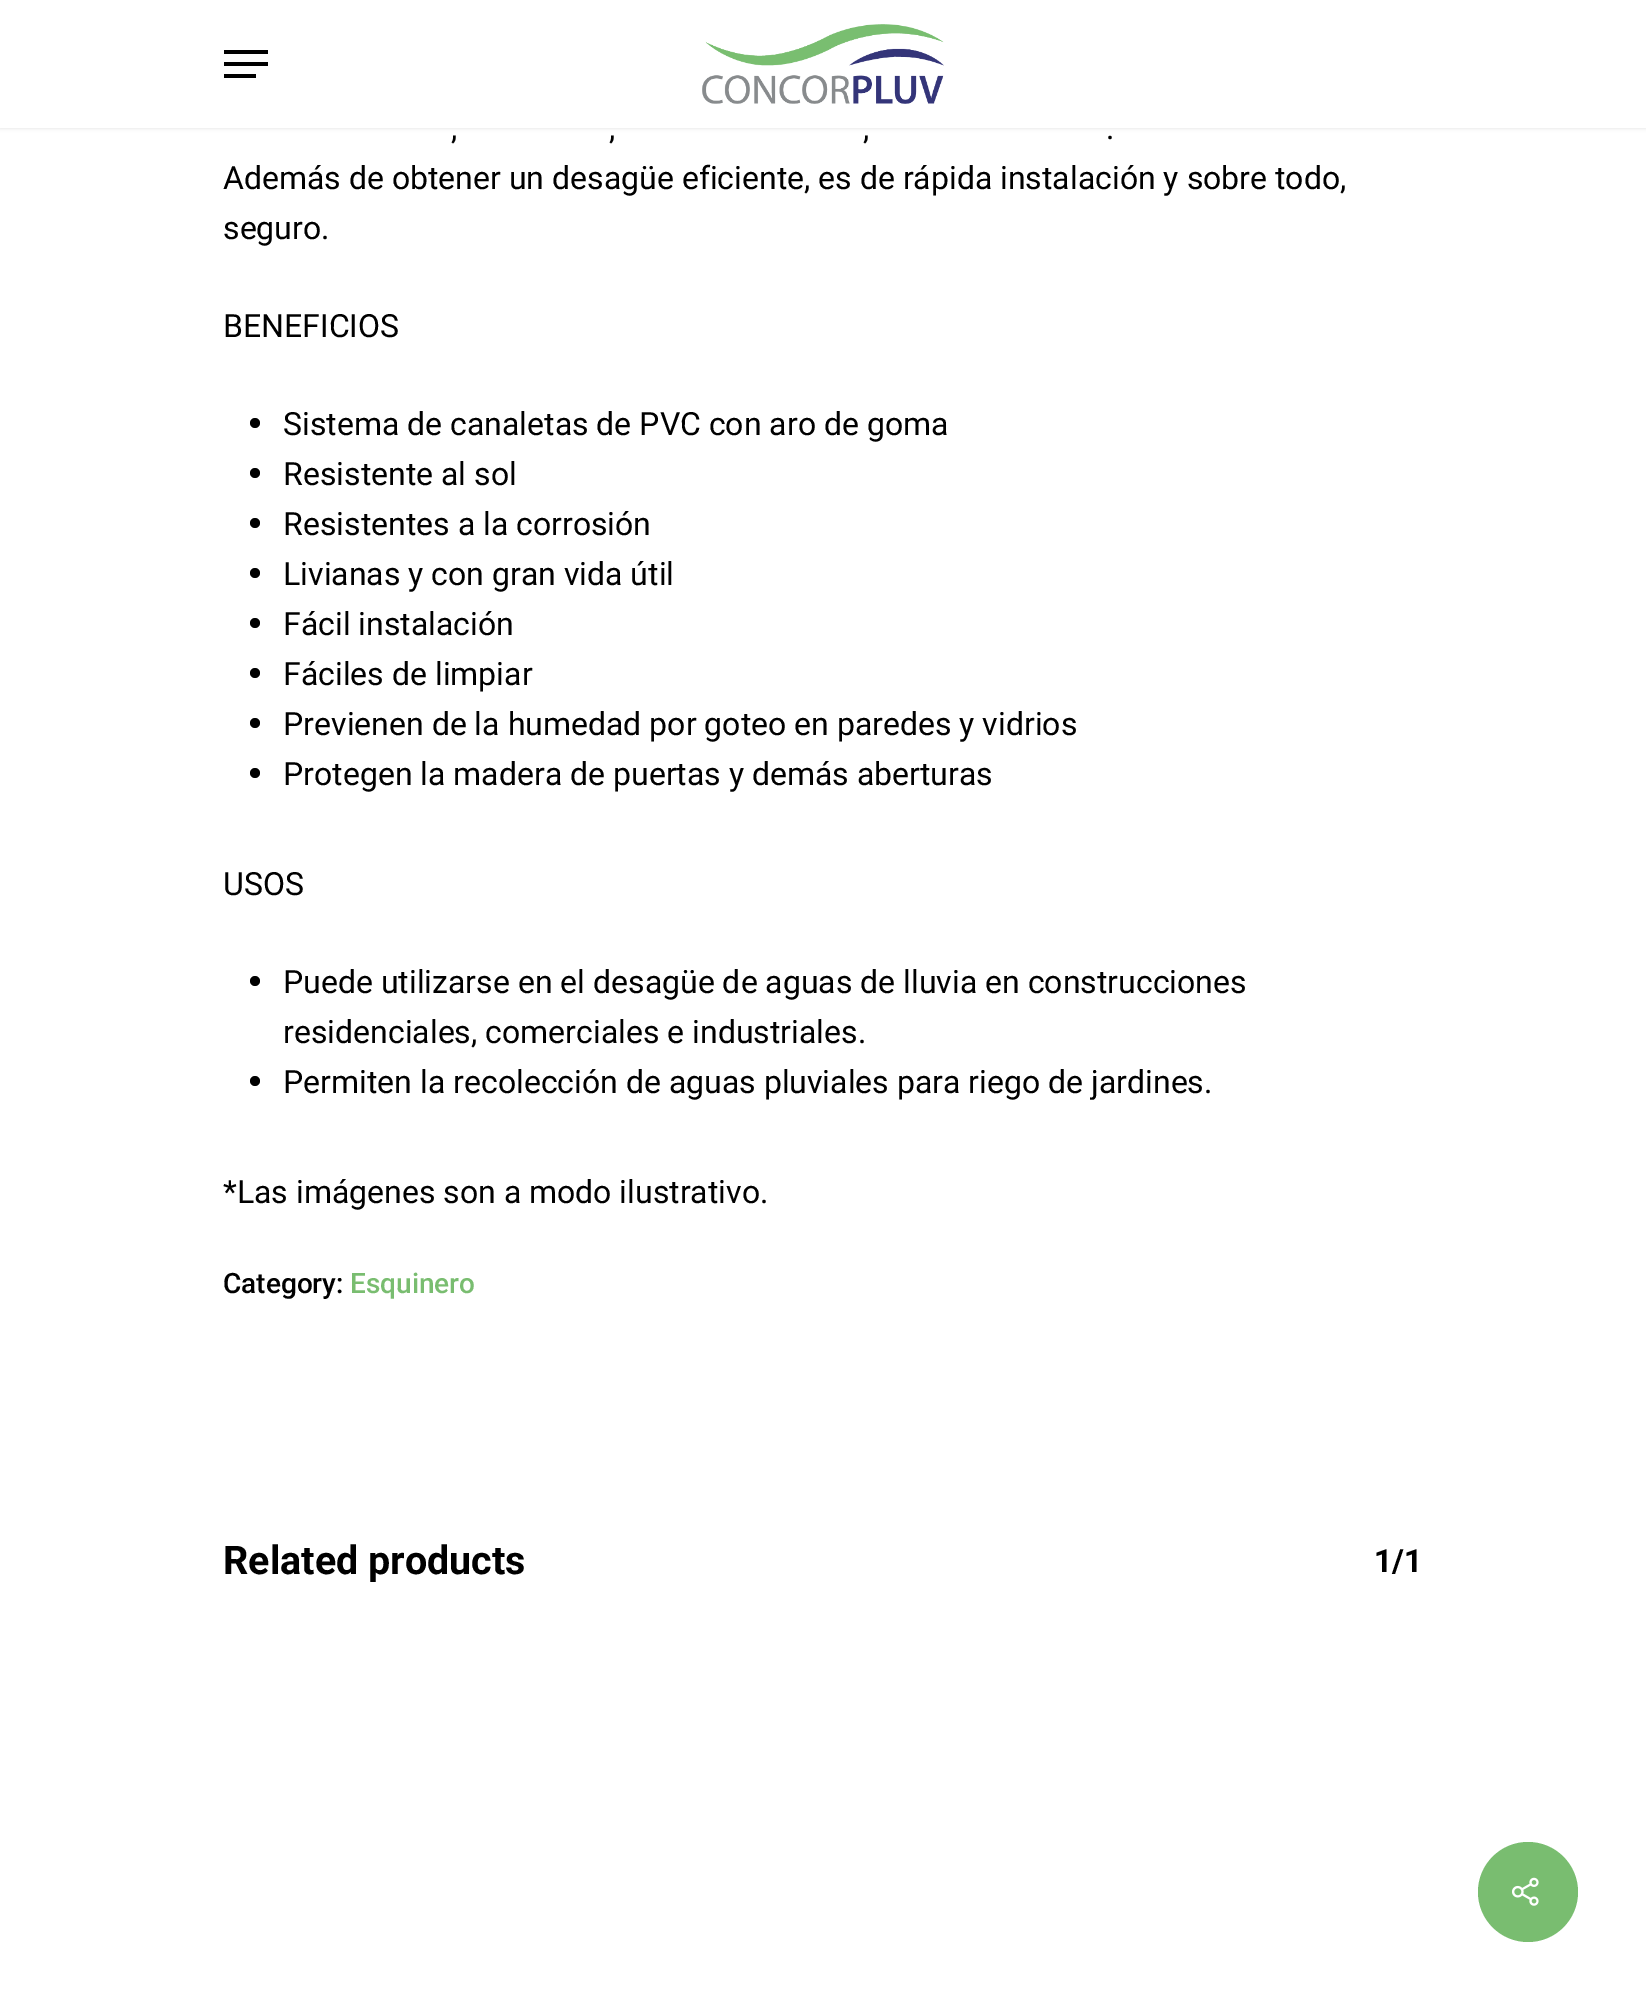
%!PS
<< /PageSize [1646 2010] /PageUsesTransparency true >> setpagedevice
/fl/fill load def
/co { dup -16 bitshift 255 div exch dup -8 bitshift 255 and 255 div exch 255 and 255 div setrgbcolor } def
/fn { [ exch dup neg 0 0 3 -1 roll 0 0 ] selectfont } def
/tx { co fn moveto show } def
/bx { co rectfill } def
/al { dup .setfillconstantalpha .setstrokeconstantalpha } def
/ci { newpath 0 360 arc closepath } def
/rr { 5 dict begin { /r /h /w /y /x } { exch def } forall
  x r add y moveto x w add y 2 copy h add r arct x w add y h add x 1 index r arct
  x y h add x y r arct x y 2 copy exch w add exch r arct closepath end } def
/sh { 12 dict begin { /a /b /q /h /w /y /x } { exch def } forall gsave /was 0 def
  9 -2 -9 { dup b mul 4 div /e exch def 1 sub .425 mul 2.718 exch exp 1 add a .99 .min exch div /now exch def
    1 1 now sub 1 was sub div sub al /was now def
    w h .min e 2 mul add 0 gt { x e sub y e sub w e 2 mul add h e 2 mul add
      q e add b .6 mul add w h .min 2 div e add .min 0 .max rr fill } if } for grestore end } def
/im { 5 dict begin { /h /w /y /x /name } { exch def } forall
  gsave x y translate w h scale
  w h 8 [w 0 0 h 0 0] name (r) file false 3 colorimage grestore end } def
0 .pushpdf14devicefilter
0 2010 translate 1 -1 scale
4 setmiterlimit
0 0 1646 2010 16#FFFFFF bx
16#000000 co
0 0 1646 128 0 2 .14 sh
0 0 1646 128 16#FFFFFF bx
224 50 44 4 16#000000 bx
224 74 32 4 16#000000 bx
224 62 44 4 16#000000 bx
(media/1.raw) 702 24 242 80 im
255 423 5 ci fl
255 473 5 ci fl
255 523 5 ci fl
255 573 5 ci fl
255 623 5 ci fl
255 673 5 ci fl
255 723 5 ci fl
255 773 5 ci fl
255 981 5 ci fl
255 1081 5 ci fl
16#79BD70 co
1528 1892 50 ci fl
(media/2.raw) 1512 1877 27 29 im
(,) 451 139 /Roboto-Regular 32 16#000000 tx
(,) 609 139 /Roboto-Regular 32 16#000000 tx
(,) 863 139 /Roboto-Regular 32 16#000000 tx
(.) 1106 139 /Roboto-Regular 32 16#000000 tx
(Además de obtener un desagüe eficiente, es de rápida instalación y sobre todo,) 223 189 /Roboto-Regular 32 16#000000 tx
(seguro.) 223 239 /Roboto-Regular 32 16#000000 tx
(BENEFICIOS) 223 337 /Roboto-Regular 32 16#000000 tx
(Sistema de canaletas de PVC con aro de goma) 283 435 /Roboto-Regular 32 16#000000 tx
(Resistente al sol) 283 485 /Roboto-Regular 32 16#000000 tx
(Resistentes a la corrosión) 283 535 /Roboto-Regular 32 16#000000 tx
(Livianas y con gran vida útil) 283 585 /Roboto-Regular 32 16#000000 tx
(Fácil instalación) 283 635 /Roboto-Regular 32 16#000000 tx
(Fáciles de limpiar) 283 685 /Roboto-Regular 32 16#000000 tx
(Previenen de la humedad por goteo en paredes y vidrios) 283 735 /Roboto-Regular 32 16#000000 tx
(Protegen la madera de puertas y demás aberturas) 283 785 /Roboto-Regular 32 16#000000 tx
(USOS) 223 895 /Roboto-Regular 32 16#000000 tx
(Puede utilizarse en el desagüe de aguas de lluvia en construcciones) 283 993 /Roboto-Regular 32 16#000000 tx
(residenciales, comerciales e industriales.) 283 1043 /Roboto-Regular 32 16#000000 tx
(Permiten la recolección de aguas pluviales para riego de jardines.) 283 1093 /Roboto-Regular 32 16#000000 tx
(*Las imágenes son a modo ilustrativo.) 223 1203 /Roboto-Regular 32 16#000000 tx
(Category:) 223 1293 /Roboto-Medium 28 16#000000 tx
(Esquinero) 350 1293 /Roboto-Medium 28 16#79BD70 tx
(Related products) 223 1574 /Roboto-Bold 39.5 16#000000 tx
(1/1) 1374 1572 /Roboto-Bold 32 16#000000 tx
.poppdf14devicefilter showpage
